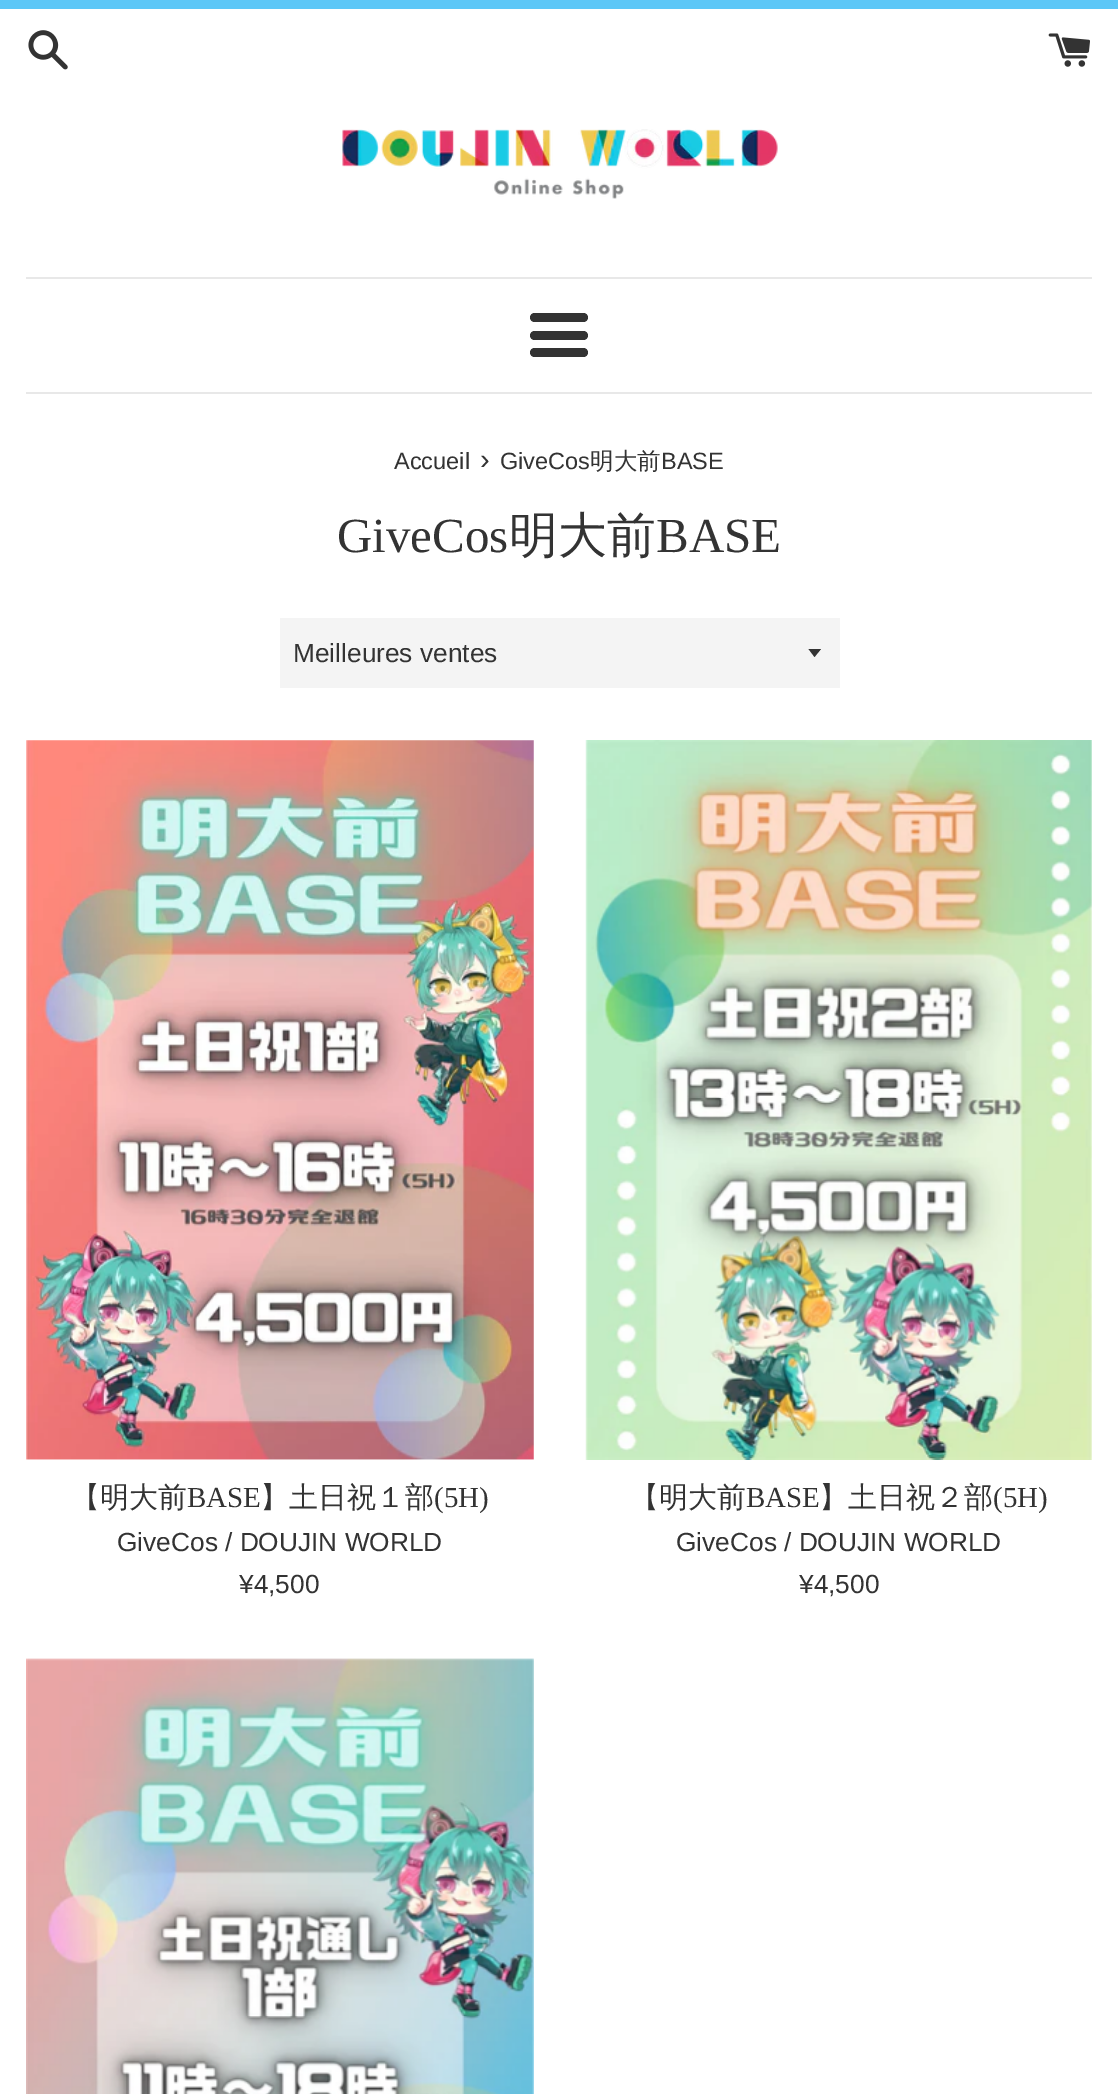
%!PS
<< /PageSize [1118 2094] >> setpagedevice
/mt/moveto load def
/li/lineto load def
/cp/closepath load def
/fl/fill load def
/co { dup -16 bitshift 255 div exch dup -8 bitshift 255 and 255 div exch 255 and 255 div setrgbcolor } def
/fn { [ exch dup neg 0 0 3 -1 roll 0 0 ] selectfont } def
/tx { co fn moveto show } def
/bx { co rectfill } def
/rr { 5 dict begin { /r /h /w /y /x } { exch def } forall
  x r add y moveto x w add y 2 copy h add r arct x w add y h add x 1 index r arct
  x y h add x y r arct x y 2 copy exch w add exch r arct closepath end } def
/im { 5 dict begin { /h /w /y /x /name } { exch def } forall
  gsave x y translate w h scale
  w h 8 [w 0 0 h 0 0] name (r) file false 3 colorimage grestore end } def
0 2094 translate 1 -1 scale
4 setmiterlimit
0 0 1118 2094 16#FFFFFF bx
0 0 1118 9 16#5DC7F7 bx
(media/1.raw) 28 30 40 40 im
(media/2.raw) 1048 33 42 34 im
(media/3.raw) 342 129 436 70 im
26 277 1066 2 16#E8E8E8 bx
16#333333 co
530 313 58 9 4.5 rr fl
530 331 58 9 4.5 rr fl
530 348 58 9 4.5 rr fl
26 392 1066 2 16#E8E8E8 bx
280 618 560 70 16#F4F4F4 bx
16#333333 co
808.5 649 mt 814.5 657 li 821 649 li cp fl
(media/4.raw) 26 740 508 720 im
(media/5.raw) 585 740 507 720 im
(media/6.raw) 26 1658 508 436 im
(Accueil) 394 469 /LiberationSans-Regular 23.5 16#333333 tx
(›) 480 469 /LiberationSans-Regular 29 16#333333 tx
(GiveCos) 500 469 /LiberationSans-Regular 23.5 16#333333 tx
(明大前) 590 469 /WenQuanYiZenHei-Medium 23.5 16#333333 tx
(BASE) 661 469 /LiberationSans-Regular 23.5 16#333333 tx
(GiveCos) 337 552 /LiberationSerif-Regular 49 16#333333 tx
(明大前) 509 552 /WenQuanYiZenHei-Medium 49 16#333333 tx
(BASE) 656 552 /LiberationSerif-Regular 49 16#333333 tx
(Meilleures ventes) 293 662 /LiberationSans-Regular 26.25 16#333333 tx
(【明大前) 71 1507 /WenQuanYiZenHei-Medium 29 16#333333 tx
(BASE) 187 1507 /LiberationSerif-Regular 29 16#333333 tx
(】土日祝１部) 260 1507 /WenQuanYiZenHei-Medium 29 16#333333 tx
(\(5H\)) 434 1507 /LiberationSerif-Regular 29 16#333333 tx
(GiveCos / DOUJIN WORLD) 117 1551 /LiberationSans-Regular 26.25 16#333333 tx
(¥4,500) 239 1593 /LiberationSans-Regular 26.25 16#333333 tx
(【明大前) 630 1507 /WenQuanYiZenHei-Medium 29 16#333333 tx
(BASE) 746 1507 /LiberationSerif-Regular 29 16#333333 tx
(】土日祝２部) 819 1507 /WenQuanYiZenHei-Medium 29 16#333333 tx
(\(5H\)) 993 1507 /LiberationSerif-Regular 29 16#333333 tx
(GiveCos / DOUJIN WORLD) 676 1551 /LiberationSans-Regular 26.25 16#333333 tx
(¥4,500) 799 1593 /LiberationSans-Regular 26.25 16#333333 tx
showpage
